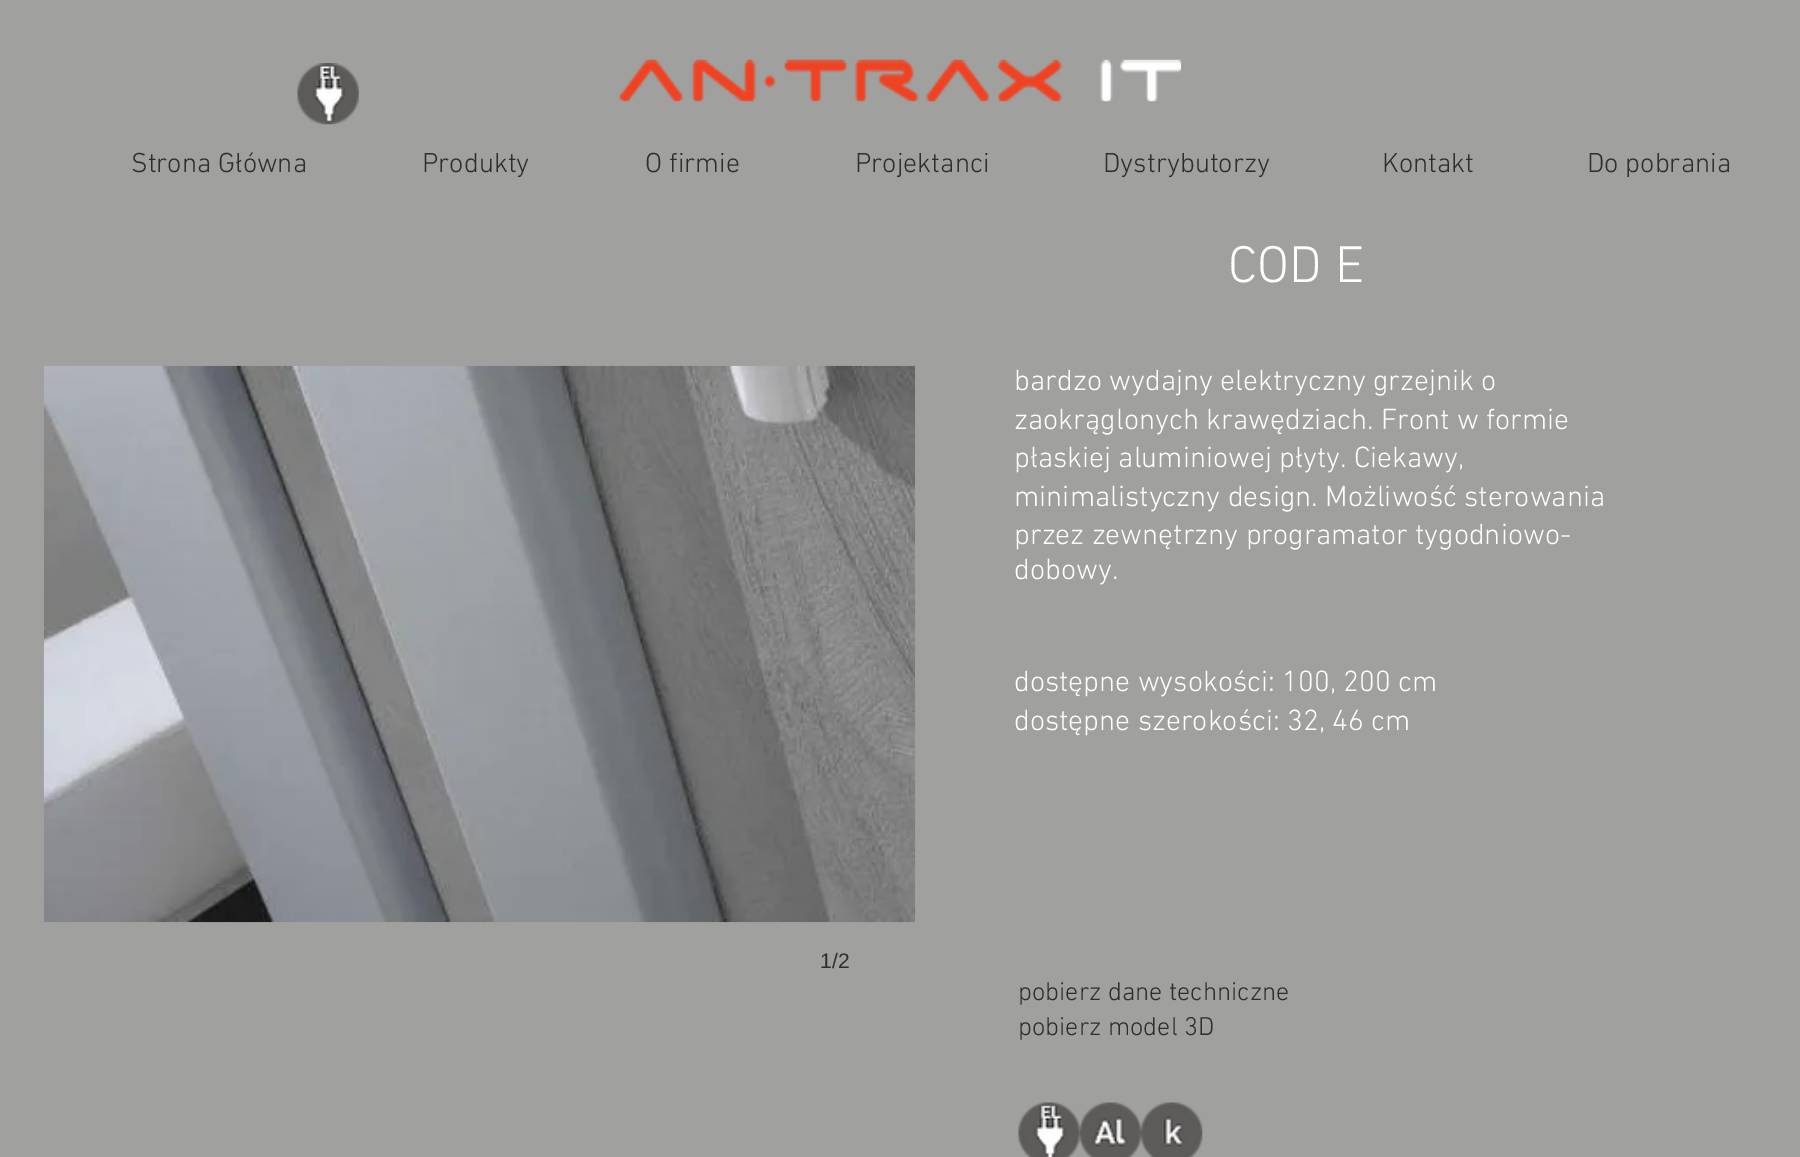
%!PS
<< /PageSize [1800 1157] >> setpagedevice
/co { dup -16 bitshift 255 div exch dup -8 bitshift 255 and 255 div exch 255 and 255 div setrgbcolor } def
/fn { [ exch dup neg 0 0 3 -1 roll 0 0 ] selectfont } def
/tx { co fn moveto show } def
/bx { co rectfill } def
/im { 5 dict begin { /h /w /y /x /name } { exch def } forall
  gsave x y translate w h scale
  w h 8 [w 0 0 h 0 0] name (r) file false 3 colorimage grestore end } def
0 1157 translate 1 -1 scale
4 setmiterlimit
0 0 1800 1157 16#A0A09F bx
(media/1.raw) 619 59 563 43 im
(media/2.raw) 297 63 62 62 im
(media/3.raw) 43 365 873 558 im
(media/4.raw) 1018 1102 62 55 im
(media/5.raw) 1079 1102 62 55 im
(media/6.raw) 1141 1102 62 55 im
(Strona Główna) 131 172 /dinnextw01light-Light 28 16#2F2E2E tx
(Produkty) 422 172 /dinnextw01light-Light 28 16#2F2E2E tx
(O firmie) 645 172 /dinnextw01light-Light 28 16#2F2E2E tx
(Projektanci) 855 172 /dinnextw01light-Light 28 16#2F2E2E tx
(Dystrybutorzy) 1103 172 /dinnextw01light-Light 28 16#2F2E2E tx
(Kontakt) 1382 172 /dinnextw01light-Light 28 16#2F2E2E tx
(Do pobrania) 1587 172 /dinnextw01light-Light 28 16#2F2E2E tx
(COD E) 1228 282 /dinnextw01light-Light 52.5 16#FFFFFF tx
(bardzo wydajny elektryczny grzejnik o) 1014 390 /dinnextw01light-Light 29.75 16#FFFFFF tx
(zaokrąglonych krawędziach. Front w formie) 1014 429 /dinnextw01light-Light 29.75 16#FFFFFF tx
(płaskiej aluminiowej płyty. Ciekawy,) 1014 467 /dinnextw01light-Light 29.75 16#FFFFFF tx
(minimalistyczny design. Możliwość sterowania) 1014 506 /dinnextw01light-Light 29.75 16#FFFFFF tx
(przez zewnętrzny programator tygodniowo-) 1014 544 /dinnextw01light-Light 29.75 16#FFFFFF tx
(dobowy.) 1014 579 /dinnextw01light-Light 29.75 16#FFFFFF tx
(dostępne wysokości: 100, 200 cm) 1014 691 /dinnextw01light-Light 29.75 16#FFFFFF tx
(dostępne szerokości: 32, 46 cm) 1014 730 /dinnextw01light-Light 29.75 16#FFFFFF tx
(1/2) 820 968 /LiberationSans-Regular 21 16#2F2E2E tx
(pobierz dane techniczne) 1018 1000 /dinnextw01light-Light 26.25 16#2F2E2E tx
(pobierz model 3D) 1018 1035 /dinnextw01light-Light 26.25 16#2F2E2E tx
showpage
